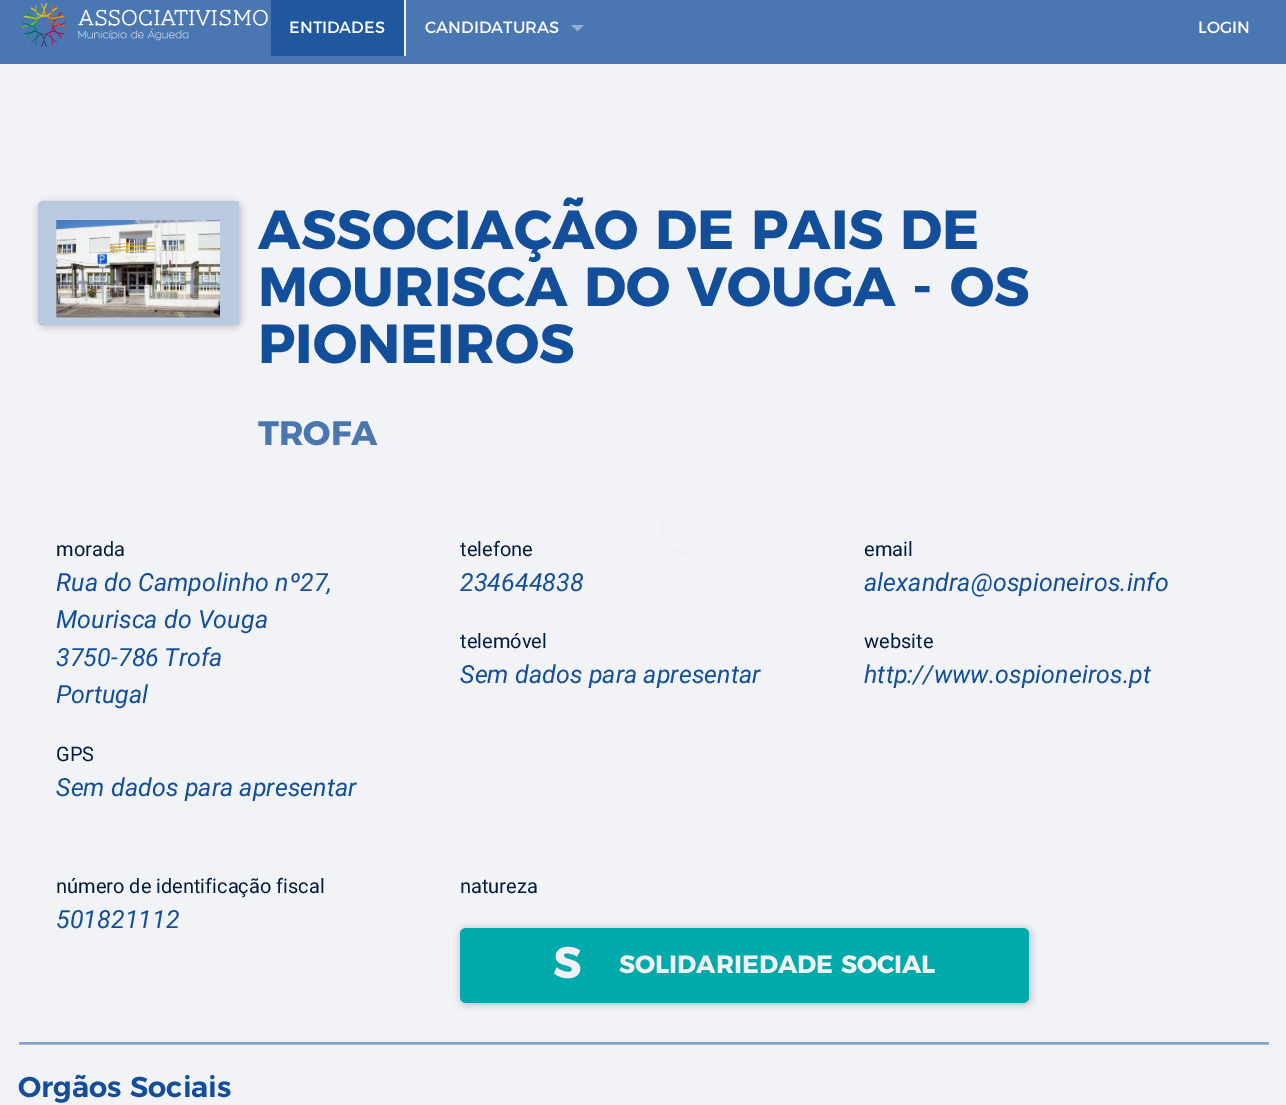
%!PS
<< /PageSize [1286 1105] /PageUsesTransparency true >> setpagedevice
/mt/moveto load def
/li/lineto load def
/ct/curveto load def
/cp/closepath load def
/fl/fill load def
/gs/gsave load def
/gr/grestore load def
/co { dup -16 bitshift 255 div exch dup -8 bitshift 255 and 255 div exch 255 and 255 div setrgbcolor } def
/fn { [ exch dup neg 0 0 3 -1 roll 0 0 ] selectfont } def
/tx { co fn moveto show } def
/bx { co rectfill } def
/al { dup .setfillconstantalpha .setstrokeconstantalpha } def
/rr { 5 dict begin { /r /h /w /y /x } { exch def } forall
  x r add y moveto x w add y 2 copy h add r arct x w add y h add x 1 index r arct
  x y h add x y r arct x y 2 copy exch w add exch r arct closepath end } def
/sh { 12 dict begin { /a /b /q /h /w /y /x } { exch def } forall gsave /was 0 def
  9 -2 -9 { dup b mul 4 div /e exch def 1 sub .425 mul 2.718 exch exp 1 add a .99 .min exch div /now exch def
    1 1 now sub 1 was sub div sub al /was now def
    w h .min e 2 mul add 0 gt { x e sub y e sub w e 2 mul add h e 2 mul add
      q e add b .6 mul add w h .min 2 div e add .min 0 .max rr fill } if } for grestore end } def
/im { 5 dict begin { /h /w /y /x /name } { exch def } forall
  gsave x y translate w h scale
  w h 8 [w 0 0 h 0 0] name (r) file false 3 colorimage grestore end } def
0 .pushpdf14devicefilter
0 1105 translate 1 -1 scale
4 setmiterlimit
0 0 1286 1105 16#F2F3F7 bx
0 0 1286 64 16#4A77B1 bx
(media/1.raw) 21 3 247 44 im
271 0 133 56 16#20589F bx
404 0 2 56 16#F2F3F7 bx
16#92ADD0 co
571 25 mt 584 25 li 577.5 31 li cp fl
gs
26 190 mt 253 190 li 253 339 li 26 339 li cp 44 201 mt 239 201 li 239 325 li 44 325 li 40.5 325 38 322.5 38 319 ct 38 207 li 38 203.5 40.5 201 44 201 ct cp eoclip newpath
16#2E3061 co
39 203 201 123 6 4 .35 sh
gr
0.25 al
16#134E9A co
44 201 mt 239 201 li 239 325 li 44 325 li 40.5 325 38 322.5 38 319 ct 38 207 li 38 203.5 40.5 201 44 201 ct cp fl
1 al
(media/2.raw) 56 220 164 98 im
16#2E3061 co
461 929 569 75 6 4 .35 sh
16#00AAAA co
460 928 569 75 6 rr fl
16#83A1C9 co
19 1042 mt 1269 1042 li 1268 1044 li 20 1044 li cp fl
0.75 al
1269 1042.5 mt 1269 1045 li 1267.5 1044 li cp fl
1269 1045 mt 19 1045 li 20 1044 li 1268 1044 li cp fl
19 1045 mt 19 1042.5 li 20 1044 li cp fl
1 al
(media/3.raw) 661 499 41 62 im
(ENTIDADES) 289 33 /Montserrat-Regular 16.25 16#FCFBFF tx
(CANDIDATURAS) 425 33 /Montserrat-Regular 16.25 16#FCFBFF tx
(LOGIN) 1198 33 /Montserrat-Regular 16.25 16#FCFBFF tx
(ASSOCIAÇÃO DE PAIS DE) 258 249 /Montserrat-Bold 55 16#134E9A tx
(MOURISCA DO VOUGA - OS) 258 306 /Montserrat-Bold 55 16#134E9A tx
(PIONEIROS) 258 363 /Montserrat-Bold 55 16#134E9A tx
(TROFA) 258 445 /Montserrat-Bold 34 16#4B77B1 tx
(morada) 56 556 /Roboto-Regular 20 16#041C3D tx
(Rua do Campolinho nº27,) 56 591 /Roboto-Italic 25 16#134E9A tx
(Mourisca do Vouga) 56 628 /Roboto-Italic 25 16#134E9A tx
(3750-786) 56 666 /Roboto-Italic 25 16#134E9A tx
(Trofa) 164 666 /Roboto-Italic 25 16#134E9A tx
(Portugal) 56 703 /Roboto-Italic 25 16#134E9A tx
(GPS) 56 761 /Roboto-Regular 20 16#041C3D tx
(Sem dados para apresentar) 56 796 /Roboto-Italic 25 16#134E9A tx
(telefone) 460 556 /Roboto-Regular 20 16#041C3D tx
(234644838) 460 591 /Roboto-Italic 25 16#134E9A tx
(telemóvel) 460 648 /Roboto-Regular 20 16#041C3D tx
(Sem dados para apresentar) 460 683 /Roboto-Italic 25 16#134E9A tx
(email) 864 556 /Roboto-Regular 20 16#041C3D tx
(alexandra@ospioneiros.info) 864 591 /Roboto-Italic 25 16#134E9A tx
(website) 864 648 /Roboto-Regular 20 16#041C3D tx
(http://www.ospioneiros.pt) 864 683 /Roboto-Italic 25 16#134E9A tx
(número de identificação fiscal) 56 893 /Roboto-Regular 20 16#041C3D tx
(501821112) 56 928 /Roboto-Italic 25 16#134E9A tx
(natureza) 460 893 /Roboto-Regular 20 16#041C3D tx
(S) 553 978 /Montserrat-Bold 44 16#F2F2F6 tx
(SOLIDARIEDADE SOCIAL) 619 973 /Montserrat-Bold 25 16#F2F2F6 tx
(Orgãos Sociais) 18 1097 /Montserrat-SemiBold 28.75 16#134E9A tx
.poppdf14devicefilter showpage
